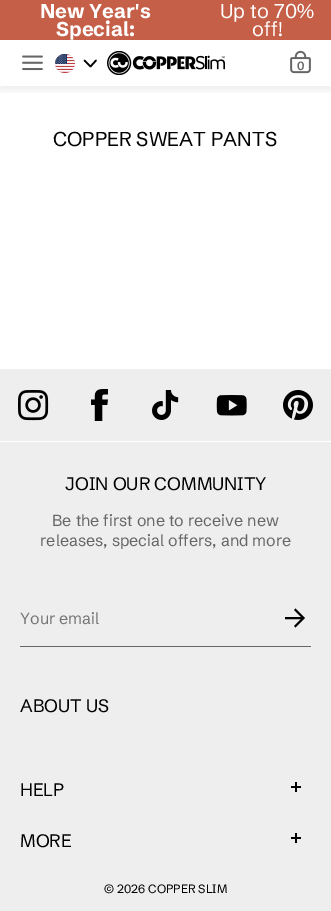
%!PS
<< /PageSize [331 911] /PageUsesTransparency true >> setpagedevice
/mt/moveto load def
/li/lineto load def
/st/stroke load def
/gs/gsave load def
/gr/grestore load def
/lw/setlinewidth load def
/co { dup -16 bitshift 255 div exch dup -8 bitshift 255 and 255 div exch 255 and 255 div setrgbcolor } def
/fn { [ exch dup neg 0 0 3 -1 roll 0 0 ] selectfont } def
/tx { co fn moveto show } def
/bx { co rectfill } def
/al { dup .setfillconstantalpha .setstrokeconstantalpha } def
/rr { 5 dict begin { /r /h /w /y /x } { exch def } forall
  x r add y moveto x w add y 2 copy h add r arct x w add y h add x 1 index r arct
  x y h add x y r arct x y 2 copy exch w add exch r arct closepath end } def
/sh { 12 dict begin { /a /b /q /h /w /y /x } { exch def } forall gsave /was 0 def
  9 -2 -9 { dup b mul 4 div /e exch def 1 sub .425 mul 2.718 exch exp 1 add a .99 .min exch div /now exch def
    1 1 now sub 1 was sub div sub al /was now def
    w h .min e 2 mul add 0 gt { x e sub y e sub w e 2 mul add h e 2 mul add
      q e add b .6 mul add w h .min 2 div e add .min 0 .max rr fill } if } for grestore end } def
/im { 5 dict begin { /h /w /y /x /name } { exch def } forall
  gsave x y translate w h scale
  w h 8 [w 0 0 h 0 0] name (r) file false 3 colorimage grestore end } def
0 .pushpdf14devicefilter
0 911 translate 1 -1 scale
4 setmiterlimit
0 0 331 911 16#FFFFFF bx
0 0 331 40 16#C55F48 bx
gs
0 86 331 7 rectclip
16#000000 co
0 44 331 46 0 5 .07 sh
gr
(media/1.raw) 22 55 21 16 im
(media/2.raw) 55 54 20 19 im
16#000000 co
1.6 lw
1 setlinecap
1 setlinejoin
96 60.5 mt 90.5 66.5 li 84.5 60.5 li st
(media/3.raw) 107 51 118 24 im
(media/4.raw) 290 50 21 24 im
0 369 331 542 16#EEEEEE bx
0 441 331 1 16#FFFFFF bx
(media/5.raw) 18 390 31 31 im
(media/6.raw) 91 389 17 32 im
(media/7.raw) 152 390 27 30 im
(media/8.raw) 216 395 31 21 im
(media/9.raw) 283 390 30 30 im
20 646 291 1 16#666666 bx
16#000000 co
2 lw
2 setlinecap
0 setlinejoin
295.5 610 mt 303.5 618 li 295.5 626 li 302 618 mt 286 618 li st
295 782 2 10 16#000000 bx
291 786 10 2 16#000000 bx
295 833 2 10 16#000000 bx
291 837 10 2 16#000000 bx
(New Year's) 40 18 /SchibstedGrotesk-Bold 20 16#FFFFFF tx
(Special:) 56 36 /SchibstedGrotesk-Bold 20 16#FFFFFF tx
(Up to 70%) 220 18 /SchibstedGrotesk-Regular 20 16#FFFFFF tx
(off!) 252 36 /SchibstedGrotesk-Regular 20 16#FFFFFF tx
(0) 297 70 /SchibstedGrotesk-SemiBold 12 16#666666 tx
(COPPER SWEAT PANTS) 53 146 /SchibstedGrotesk-Regular 20 16#000000 tx
(JOIN OUR COMMUNITY) 65 490 /SchibstedGrotesk-Regular 18 16#000000 tx
(Be the first one to receive new) 52 526 /SchibstedGrotesk-Regular 16 16#666666 tx
(releases, special offers, and more) 40 546 /SchibstedGrotesk-Regular 16 16#666666 tx
(Your email) 20 624 /SchibstedGrotesk-Regular 16 16#757575 tx
(ABOUT US) 20 712 /SchibstedGrotesk-Regular 18 16#000000 tx
(HELP) 20 796 /SchibstedGrotesk-Regular 18 16#000000 tx
(MORE) 20 847 /SchibstedGrotesk-Regular 18 16#000000 tx
(© 2026 COPPER SLIM) 104 893 /SchibstedGrotesk-Regular 12 16#000000 tx
.poppdf14devicefilter showpage
